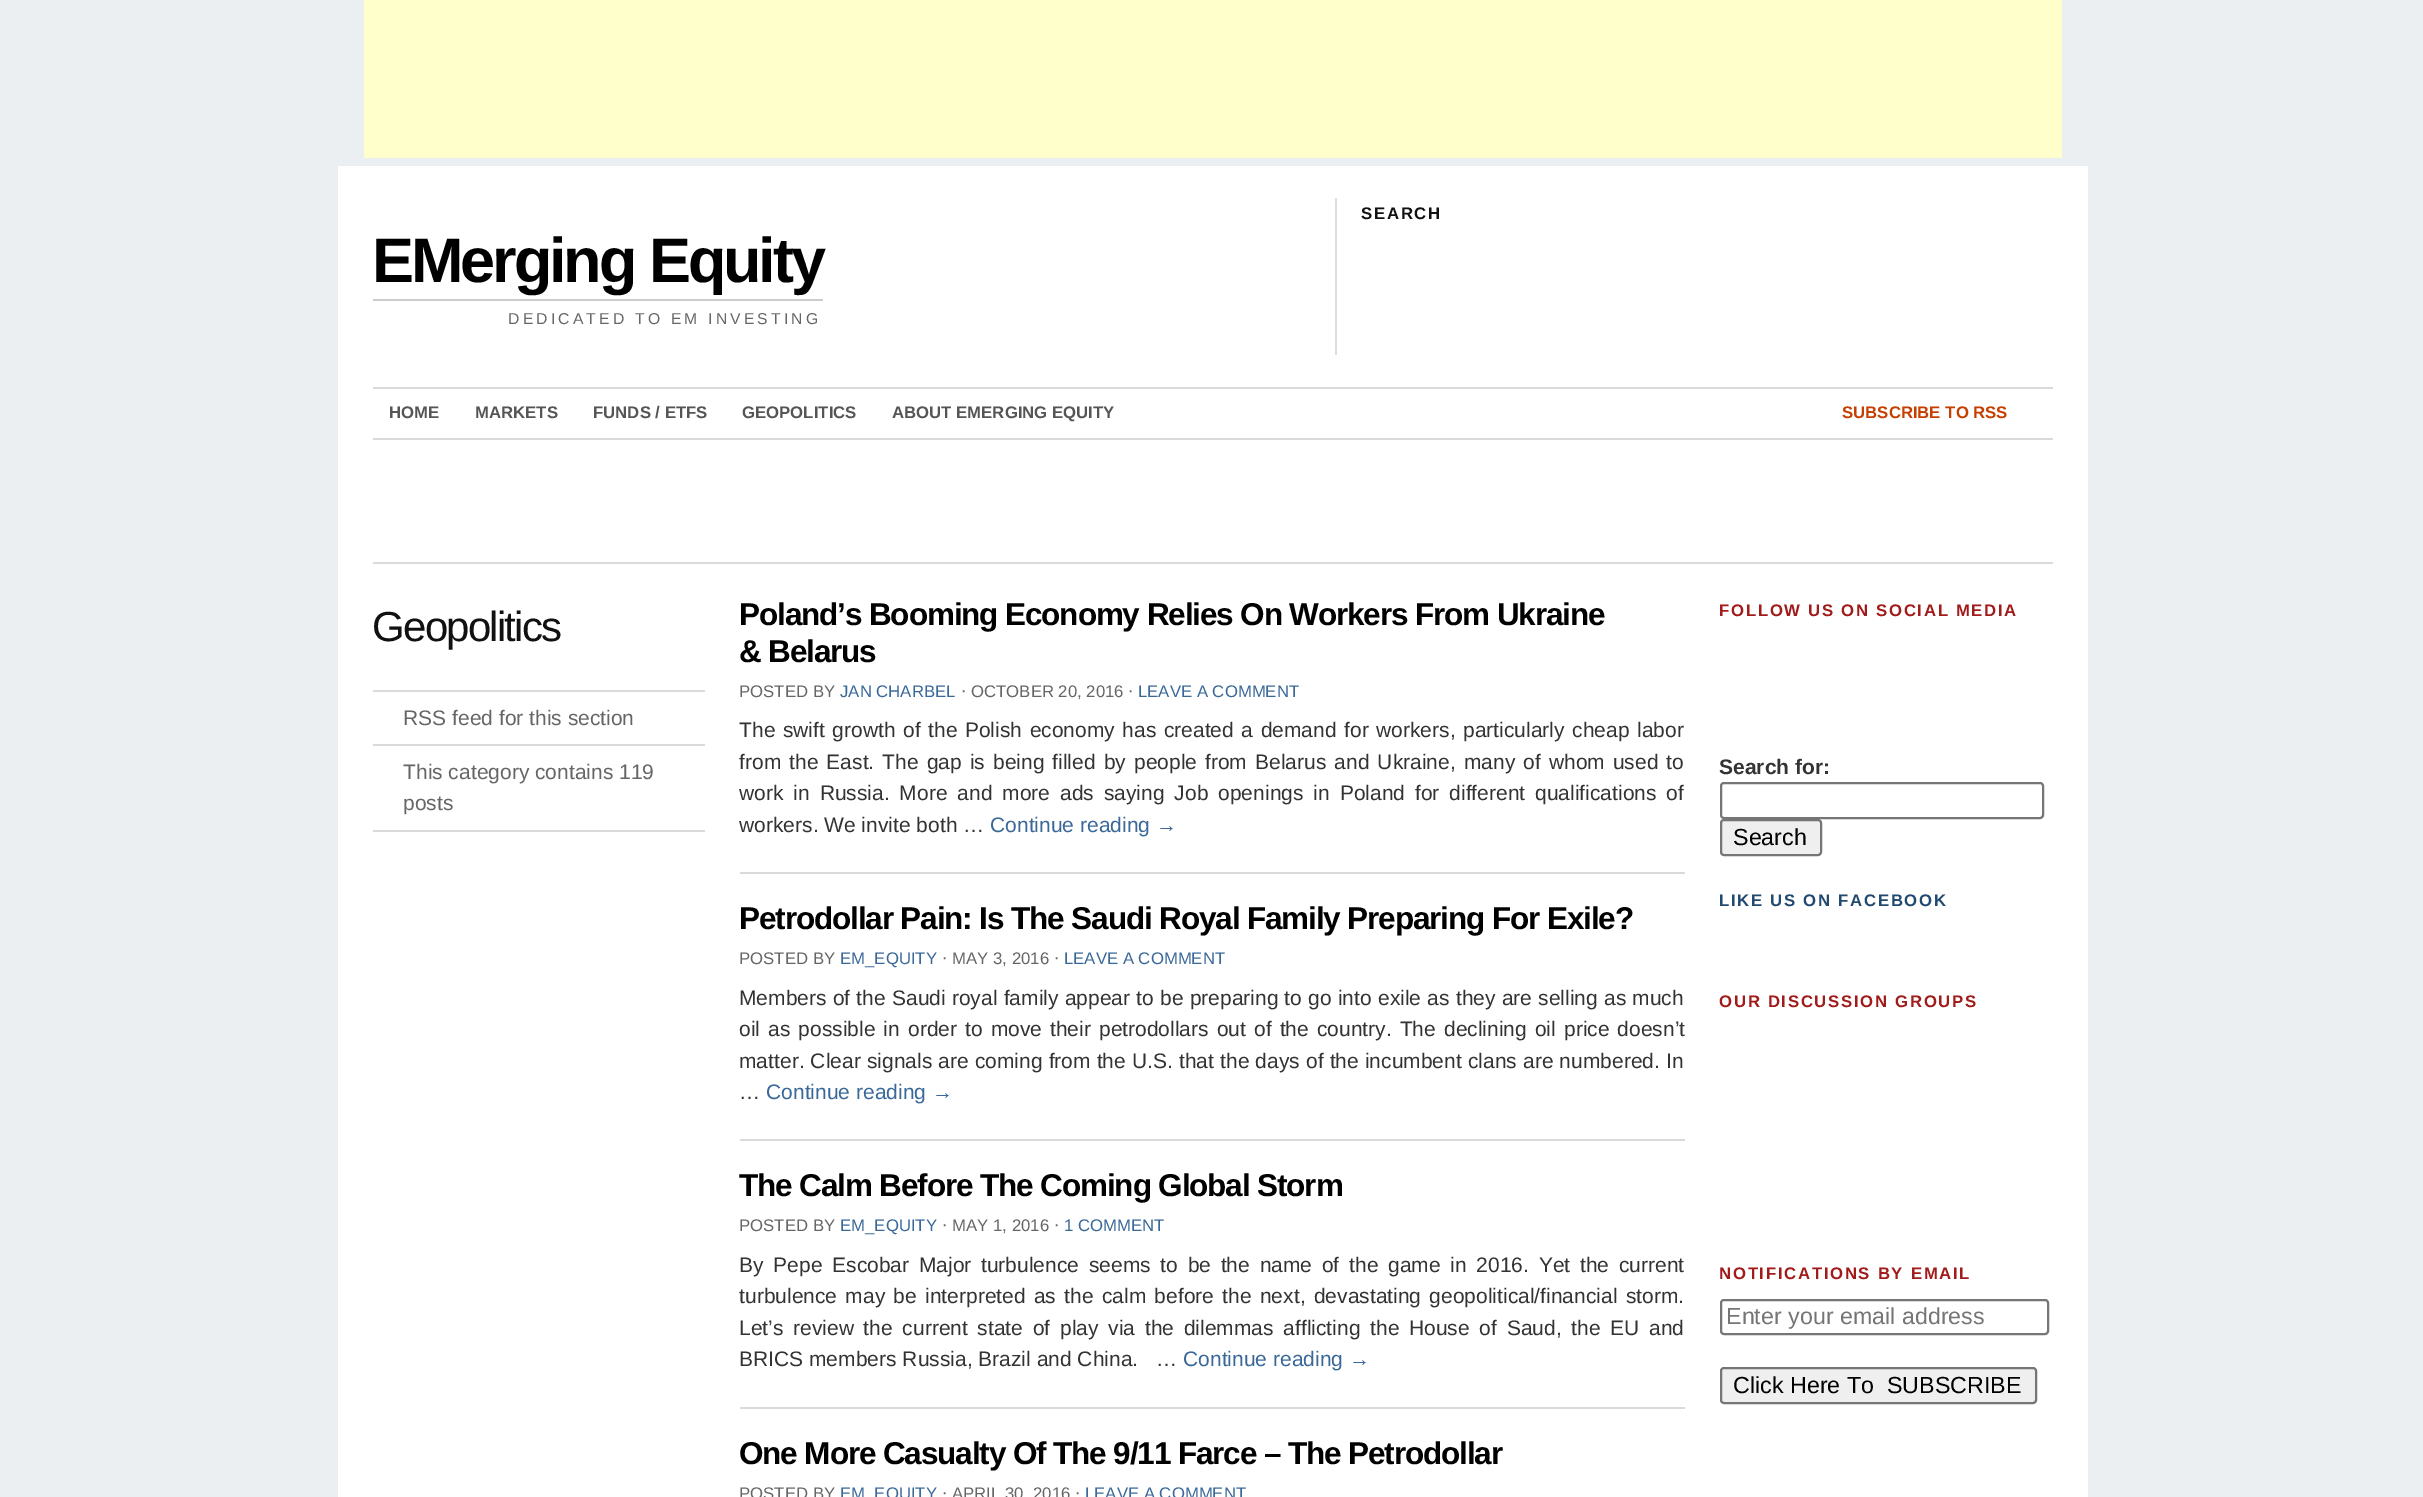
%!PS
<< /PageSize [2423 1497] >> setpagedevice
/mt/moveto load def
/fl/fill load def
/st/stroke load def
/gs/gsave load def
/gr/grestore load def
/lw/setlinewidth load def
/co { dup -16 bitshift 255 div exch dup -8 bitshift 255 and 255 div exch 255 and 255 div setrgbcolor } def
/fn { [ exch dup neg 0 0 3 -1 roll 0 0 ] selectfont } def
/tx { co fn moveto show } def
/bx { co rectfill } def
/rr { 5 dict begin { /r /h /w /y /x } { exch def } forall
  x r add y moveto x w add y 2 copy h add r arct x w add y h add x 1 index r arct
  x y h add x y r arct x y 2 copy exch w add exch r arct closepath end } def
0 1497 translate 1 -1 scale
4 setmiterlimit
0 0 2423 1497 16#EBEFF2 bx
364 0 1698 158 16#FFFFCC bx
338 166 1750 1331 16#FFFFFF bx
1335 198 2 157 16#DDDDDD bx
373 299 450 2 16#CCCCCC bx
373 387 1680 2 16#DADADA bx
373 438 1680 2 16#DADADA bx
373 562 1680 2 16#DADADA bx
373 690 332 2 16#DADADA bx
373 744 332 2 16#DADADA bx
373 830 332 2 16#DADADA bx
740 872 945 2 16#DADADA bx
740 1139 945 2 16#DADADA bx
740 1407 945 2 16#DADADA bx
16#767676 co
2 lw
1721 783 322 35 3 rr st
16#EFEFEF co
1721 820 100 35 3 rr gs fl gr
16#767676 co
st
1721 1300 327 34 3 rr st
16#EFEFEF co
1721 1368 315 35 3 rr gs fl gr
16#767676 co
st
/LiberationSans-Bold 16.75 fn
16#111111 co
1361 219 mt 1.7 0 (SEARCH) ashow
/LiberationSans-Bold 63 fn
16#000000 co
372 282 mt -3.1 0 (EMerging Equity) ashow
/LiberationSans-Regular 15.75 fn
16#666666 co
508 324 mt 3.15 0 (DEDICATED TO EM INVESTING) ashow
(HOME) 389 418 /LiberationSans-Bold 16.75 16#555555 tx
(MARKETS) 475 418 /LiberationSans-Bold 16.75 16#555555 tx
(FUNDS / ETFS) 593 418 /LiberationSans-Bold 16.75 16#555555 tx
(GEOPOLITICS) 742 418 /LiberationSans-Bold 16.75 16#555555 tx
(ABOUT EMERGING EQUITY) 892 418 /LiberationSans-Bold 16.75 16#555555 tx
(SUBSCRIBE TO RSS) 1842 418 /LiberationSans-Bold 16.75 16#C63F00 tx
/LiberationSans-Regular 42 fn
16#111111 co
372 641 mt -1.75 0 (Geopolitics) ashow
(RSS feed for this section) 403 725 /LiberationSans-Regular 21 16#666666 tx
(This category contains 119) 403 779 /LiberationSans-Regular 21 16#666666 tx
(posts) 403 810 /LiberationSans-Regular 21 16#666666 tx
/LiberationSans-Bold 31.5 fn
16#000000 co
739 625 mt -1.13 0 (Poland’s Booming Economy Relies On Workers From Ukraine) ashow
739 662 mt -1.13 0 (& Belarus) ashow
(POSTED BY) 739 697 /LiberationSans-Regular 16.75 16#666666 tx
(JAN CHARBEL) 840 697 /LiberationSans-Regular 16.75 16#3A6999 tx
(⋅) 961 697 /DejaVuSans-Regular 16.75 16#666666 tx
(OCTOBER 20, 2016) 971 697 /LiberationSans-Regular 16.75 16#666666 tx
(⋅) 1128 697 /DejaVuSans-Regular 16.75 16#666666 tx
(LEAVE A COMMENT) 1138 697 /LiberationSans-Regular 16.75 16#3A6999 tx
/LiberationSans-Regular 21 fn
16#333333 co
739 737 mt 1.75 0 32 (The swift growth of the Polish economy has created a demand for workers, particularly cheap labor) widthshow
739 769 mt 2.25 0 32 (from the East. The gap is being filled by people from Belarus and Ukraine, many of whom used to) widthshow
739 800 mt 4.1 0 32 (work in Russia. More and more ads saying Job openings in Poland for different qualifications of) widthshow
(workers. We invite both …) 739 832 /LiberationSans-Regular 21 16#333333 tx
(Continue reading →) 990 832 /LiberationSans-Regular 21 16#3A6999 tx
/LiberationSans-Bold 31.5 fn
16#000000 co
739 929 mt -1.13 0 (Petrodollar Pain: Is The Saudi Royal Family Preparing For Exile?) ashow
(POSTED BY) 739 964 /LiberationSans-Regular 16.75 16#666666 tx
(EM_EQUITY) 840 964 /LiberationSans-Regular 16.75 16#3A6999 tx
(⋅) 942 964 /DejaVuSans-Regular 16.75 16#666666 tx
(MAY 3, 2016) 952 964 /LiberationSans-Regular 16.75 16#666666 tx
(⋅) 1054 964 /DejaVuSans-Regular 16.75 16#666666 tx
(LEAVE A COMMENT) 1064 964 /LiberationSans-Regular 16.75 16#3A6999 tx
/LiberationSans-Regular 21 fn
16#333333 co
739 1005 mt .4 0 32 (Members of the Saudi royal family appear to be preparing to go into exile as they are selling as much) widthshow
739 1036 mt 2.25 0 32 (oil as possible in order to move their petrodollars out of the country. The declining oil price doesn’t) widthshow
739 1068 mt .3 0 32 (matter. Clear signals are coming from the U.S. that the days of the incumbent clans are numbered. In) widthshow
(…) 739 1099 /LiberationSans-Regular 21 16#333333 tx
(Continue reading →) 766 1099 /LiberationSans-Regular 21 16#3A6999 tx
/LiberationSans-Bold 31.5 fn
16#000000 co
739 1196 mt -1.13 0 (The Calm Before The Coming Global Storm) ashow
(POSTED BY) 739 1231 /LiberationSans-Regular 16.75 16#666666 tx
(EM_EQUITY) 840 1231 /LiberationSans-Regular 16.75 16#3A6999 tx
(⋅) 942 1231 /DejaVuSans-Regular 16.75 16#666666 tx
(MAY 1, 2016) 952 1231 /LiberationSans-Regular 16.75 16#666666 tx
(⋅) 1054 1231 /DejaVuSans-Regular 16.75 16#666666 tx
(1 COMMENT) 1064 1231 /LiberationSans-Regular 16.75 16#3A6999 tx
/LiberationSans-Regular 21 fn
16#333333 co
739 1272 mt 3.9 0 32 (By Pepe Escobar Major turbulence seems to be the name of the game in 2016. Yet the current) widthshow
739 1303 mt 2.5 0 32 (turbulence may be interpreted as the calm before the next, devastating geopolitical/financial storm.) widthshow
739 1335 mt 3.9 0 32 (Let’s review the current state of play via the dilemmas afflicting the House of Saud, the EU and) widthshow
(BRICS members Russia, Brazil and China.   …) 739 1366 /LiberationSans-Regular 21 16#333333 tx
(Continue reading →) 1183 1366 /LiberationSans-Regular 21 16#3A6999 tx
/LiberationSans-Bold 31.5 fn
16#000000 co
739 1464 mt -1.13 0 (One More Casualty Of The 9/11 Farce – The Petrodollar) ashow
(POSTED BY) 739 1499 /LiberationSans-Regular 16.75 16#666666 tx
(EM_EQUITY) 840 1499 /LiberationSans-Regular 16.75 16#3A6999 tx
(⋅) 942 1499 /DejaVuSans-Regular 16.75 16#666666 tx
(APRIL 30, 2016) 952 1499 /LiberationSans-Regular 16.75 16#666666 tx
(⋅) 1075 1499 /DejaVuSans-Regular 16.75 16#666666 tx
(LEAVE A COMMENT) 1085 1499 /LiberationSans-Regular 16.75 16#3A6999 tx
/LiberationSans-Bold 16.75 fn
16#A11B1B co
1719 616 mt 1.7 0 (FOLLOW US ON SOCIAL MEDIA) ashow
(Search for:) 1719 774 /LiberationSans-Bold 21 16#333333 tx
(Search) 1733 845 /LiberationSans-Regular 23.25 16#000000 tx
/LiberationSans-Bold 16.75 fn
16#224970 co
1719 906 mt 1.7 0 (LIKE US ON FACEBOOK) ashow
16#A11B1B co
1719 1007 mt 1.7 0 (OUR DISCUSSION GROUPS) ashow
1719 1279 mt 1.7 0 (NOTIFICATIONS BY EMAIL) ashow
(Enter your email address) 1726 1324 /LiberationSans-Regular 23.25 16#757575 tx
(Click Here To  SUBSCRIBE) 1733 1393 /LiberationSans-Regular 23.25 16#000000 tx
showpage
